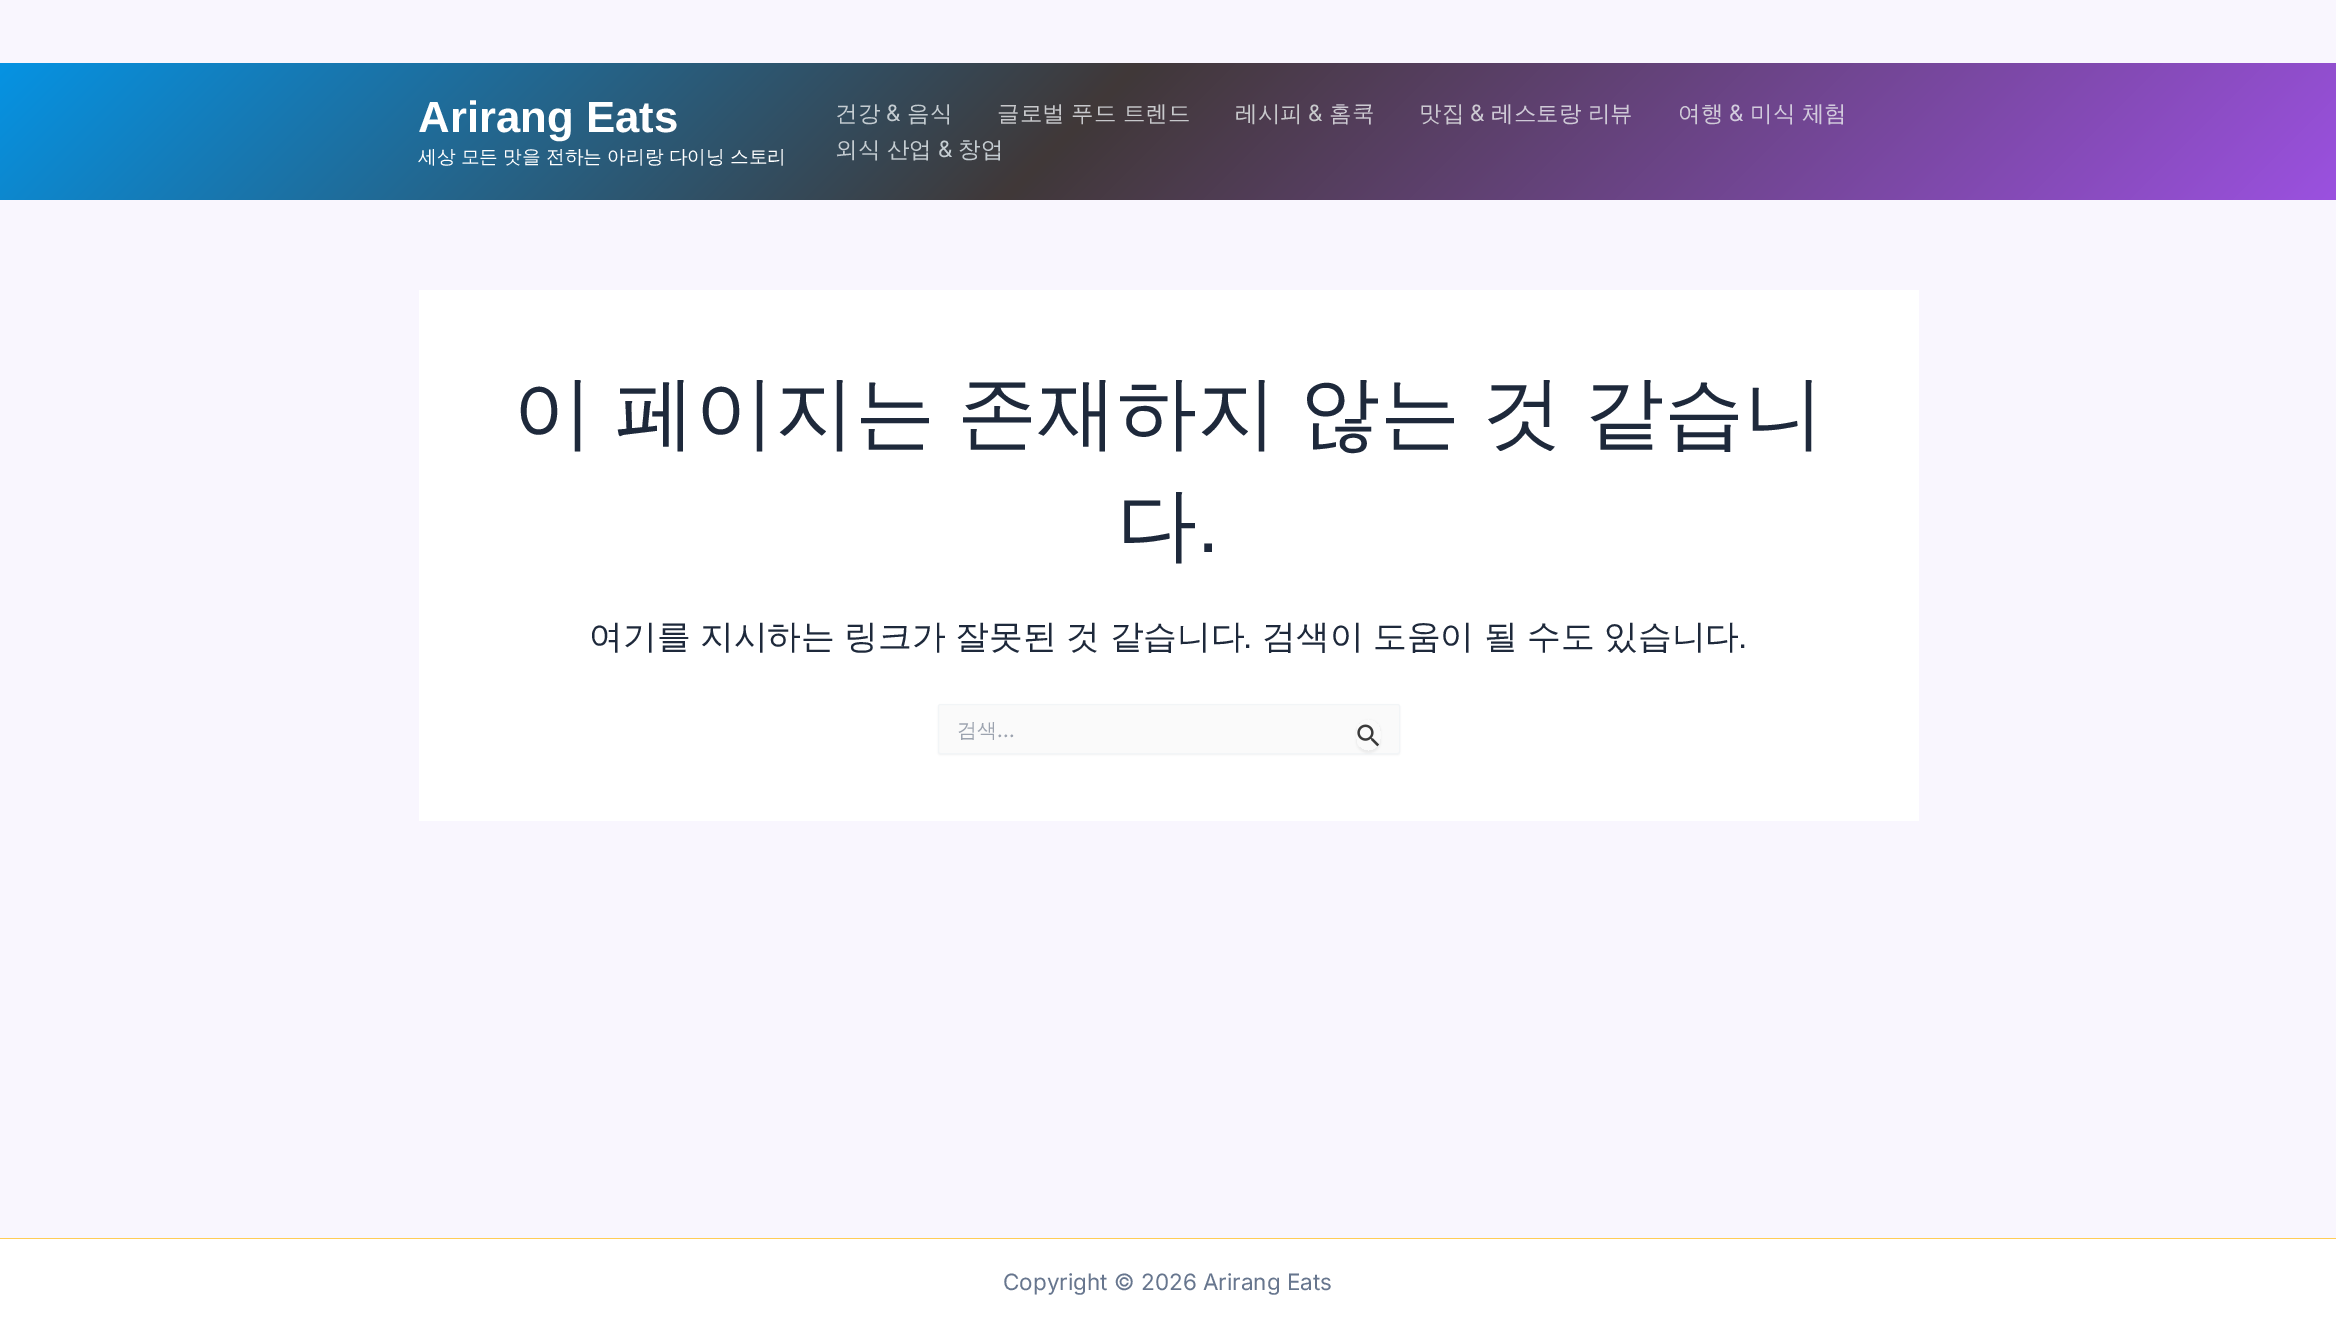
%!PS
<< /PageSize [2336 1326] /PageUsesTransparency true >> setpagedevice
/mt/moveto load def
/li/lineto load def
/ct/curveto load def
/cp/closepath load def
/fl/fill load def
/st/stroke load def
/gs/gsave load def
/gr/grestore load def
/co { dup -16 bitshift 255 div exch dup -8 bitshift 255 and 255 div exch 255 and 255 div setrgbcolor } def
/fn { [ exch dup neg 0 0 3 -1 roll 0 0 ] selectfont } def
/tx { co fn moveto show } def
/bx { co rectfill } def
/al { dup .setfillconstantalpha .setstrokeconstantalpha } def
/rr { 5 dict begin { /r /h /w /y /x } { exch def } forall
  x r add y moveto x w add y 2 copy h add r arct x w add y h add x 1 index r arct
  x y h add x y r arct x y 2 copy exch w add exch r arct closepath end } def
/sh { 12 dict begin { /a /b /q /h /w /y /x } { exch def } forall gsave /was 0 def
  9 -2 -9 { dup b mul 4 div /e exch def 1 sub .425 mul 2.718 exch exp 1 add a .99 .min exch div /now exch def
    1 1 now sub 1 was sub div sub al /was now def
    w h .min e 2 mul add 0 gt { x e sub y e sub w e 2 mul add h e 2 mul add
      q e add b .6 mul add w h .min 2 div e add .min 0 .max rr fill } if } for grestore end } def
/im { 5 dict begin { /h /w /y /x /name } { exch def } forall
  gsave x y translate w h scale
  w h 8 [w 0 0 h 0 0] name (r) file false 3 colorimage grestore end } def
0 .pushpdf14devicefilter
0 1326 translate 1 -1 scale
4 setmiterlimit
0 0 2336 1326 16#F9F6FE bx
gs 0 63 mt 2336 63 li 2336 200 li 0 200 li cp clip newpath
<< /ShadingType 2 /ColorSpace /DeviceRGB /Coords [550 -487 1787 750] /Extend [true true] /Function << /FunctionType 3 /Domain [0 1] /Functions [<< /FunctionType 2 /Domain [0 1] /C0 [.024 .576 .89] /C1 [.251 .22 .22] /N 1 >> << /FunctionType 2 /Domain [0 1] /C0 [.251 .22 .22] /C1 [.608 .318 .878] /N 1 >>] /Bounds [.46] /Encode [0 1 0 1] >> >> shfill gr
419 290 1500 531 16#FFFFFF bx
16#000000 co
938 705 462 50 2.5 1 .05 sh
16#FAFAFA co
938.5 704.5 461 49 2 rr gs fl gr
16#F2F5F7 co
st
gs
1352 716 mt 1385 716 li 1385 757 li 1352 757 li cp 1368.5 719 mt 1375.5 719 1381 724.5 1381 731.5 ct 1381 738.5 li 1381 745.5 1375.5 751 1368.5 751 ct 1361.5 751 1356 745.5 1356 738.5 ct 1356 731.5 li 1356 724.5 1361.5 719 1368.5 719 ct cp eoclip newpath
16#000000 co
1356 720 25 33 12.5 1 .05 sh
gr
(media/1.raw) 1357 724 22 23 im
0 1239 2336 87 16#FFFFFF bx
0 1238 2336 1 16#FFCD57 bx
(Arirang Eats) 418 132 /LiberationSans-Bold 43.75 16#FFFFFF tx
/WenQuanYiZenHei-Medium 18.75 fn
418 163 mt -.5 0 32 (세상 모든 맛을 전하는 아리랑 다이닝 스토리) widthshow
(건강) 835 121 /WenQuanYiZenHei-Medium 22.5 16#C4CCD1 tx
(&) 886 121 /Inter-Regular 22.5 16#C4CCD1 tx
(음식) 907 121 /WenQuanYiZenHei-Medium 22.5 16#C4CCD1 tx
(글로벌 푸드 트렌드) 997 121 /WenQuanYiZenHei-Medium 22.5 16#C7C8CB tx
(레시피) 1235 121 /WenQuanYiZenHei-Medium 22.5 16#C7C8CB tx
(&) 1308 121 /Inter-Regular 22.5 16#C7C8CB tx
(홈쿡) 1329 121 /WenQuanYiZenHei-Medium 22.5 16#CCC9D1 tx
(맛집) 1419 121 /WenQuanYiZenHei-Medium 22.5 16#CCC9D1 tx
(&) 1470 121 /Inter-Regular 22.5 16#CCC9D1 tx
(레스토랑 리뷰) 1491 121 /WenQuanYiZenHei-Medium 22.5 16#CFCAD7 tx
(여행) 1678 121 /WenQuanYiZenHei-Medium 22.5 16#CFCAD7 tx
(&) 1729 121 /Inter-Regular 22.5 16#D2CBDD tx
(미식 체험) 1750 121 /WenQuanYiZenHei-Medium 22.5 16#D2CBDD tx
(외식 산업) 835 157 /WenQuanYiZenHei-Medium 22.5 16#C4CCD1 tx
(&) 938 157 /Inter-Regular 22.5 16#C4CCD1 tx
(창업) 958 157 /WenQuanYiZenHei-Medium 22.5 16#C4CCD1 tx
/WenQuanYiZenHei-Medium 80 fn
16#1E293B co
513 440 mt -1.75 0 32 (이 페이지는 존재하지 않는 것 같습니) widthshow
(다) 1117 552 /WenQuanYiZenHei-Medium 80 16#1E293B tx
(.) 1197 552 /LiberationSans-Regular 80 16#1E293B tx
/WenQuanYiZenHei-Medium 33.75 fn
589 648 mt -.5 0 32 (여기를 지시하는 링크가 잘못된 것 같습니다) widthshow
(.) 1243 648 /LiberationSans-Regular 33.75 16#1E293B tx
/WenQuanYiZenHei-Medium 33.75 fn
1262 648 mt -.5 0 32 (검색이 도움이 될 수도 있습니다) widthshow
(.) 1738 648 /LiberationSans-Regular 33.75 16#1E293B tx
(검색) 957 737 /WenQuanYiZenHei-Medium 20 16#9CA3AF tx
(...) 997 737 /Inter-Regular 20 16#9CA3AF tx
(Copyright © 2026 Arirang Eats) 1003 1290 /Inter-Regular 22.5 16#67768E tx
.poppdf14devicefilter showpage
